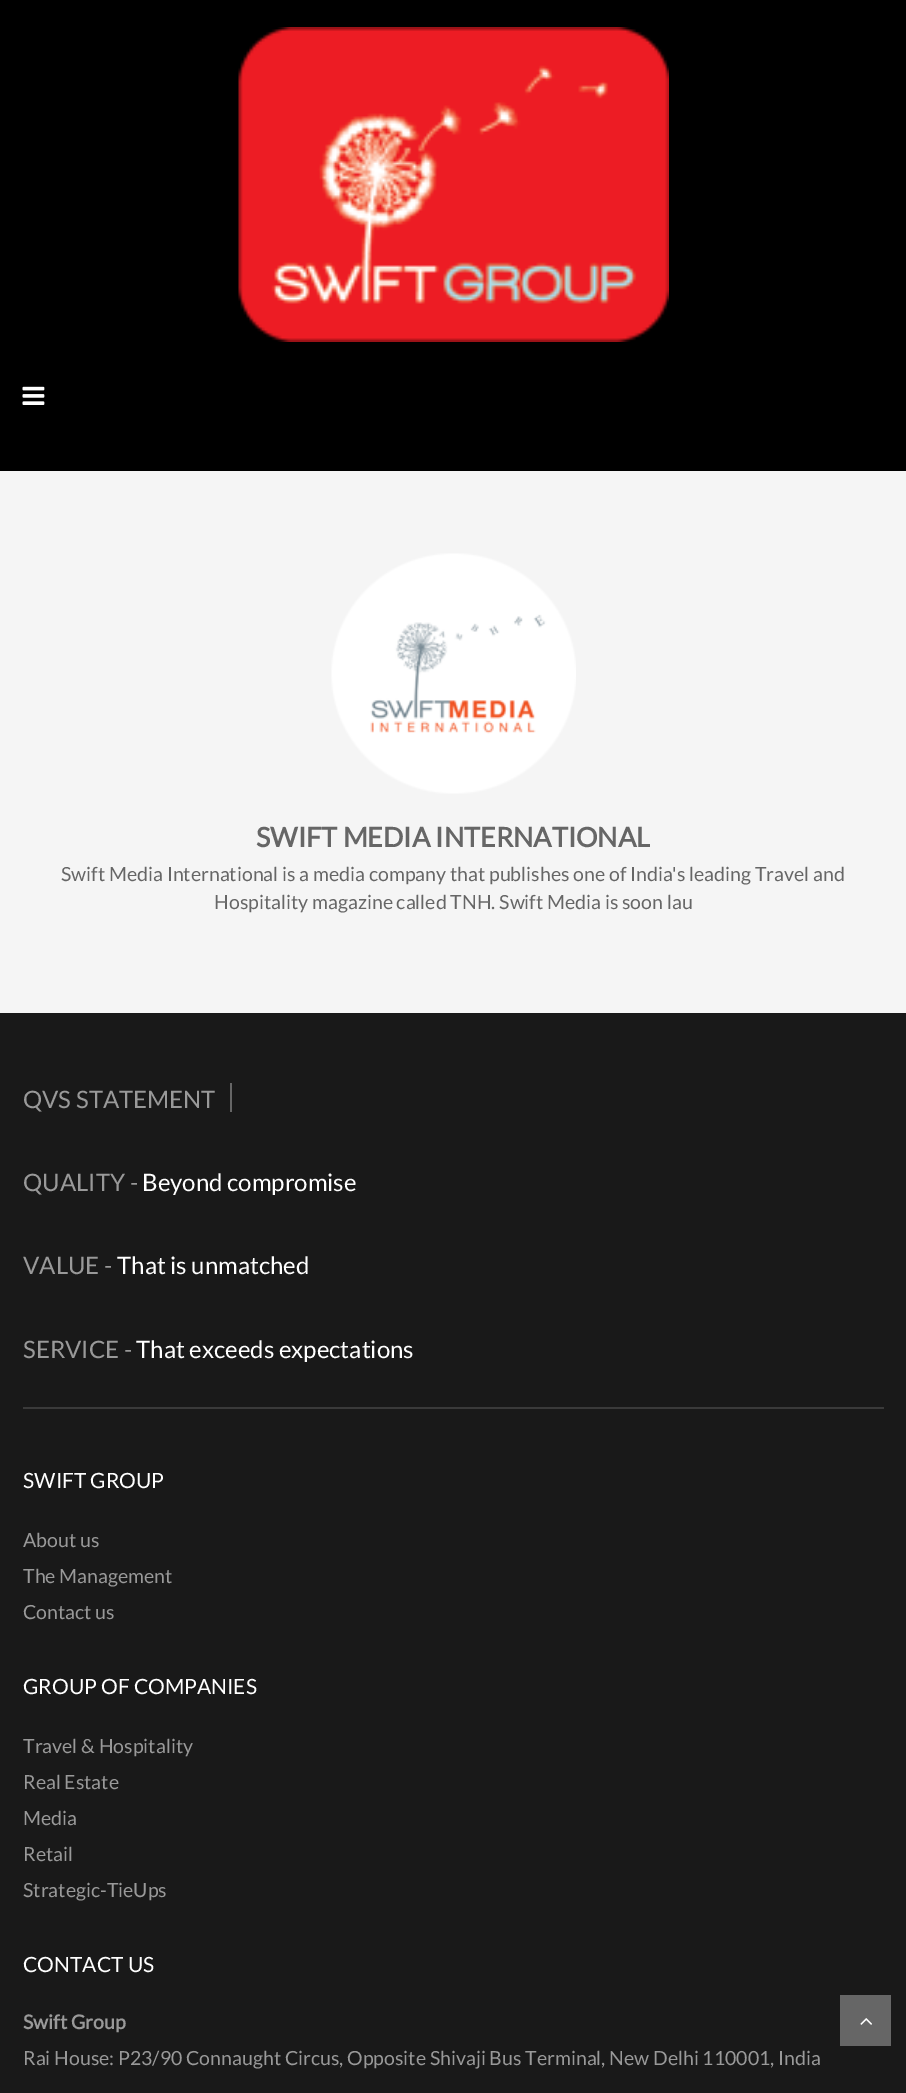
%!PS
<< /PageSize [906 2093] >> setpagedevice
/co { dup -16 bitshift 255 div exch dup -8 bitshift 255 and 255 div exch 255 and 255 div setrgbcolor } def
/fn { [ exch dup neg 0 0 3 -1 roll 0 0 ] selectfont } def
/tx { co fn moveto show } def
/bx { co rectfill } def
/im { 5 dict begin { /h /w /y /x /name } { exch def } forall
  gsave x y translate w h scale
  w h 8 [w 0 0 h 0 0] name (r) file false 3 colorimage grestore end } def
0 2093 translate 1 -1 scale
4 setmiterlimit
0 0 906 2093 16#F5F5F5 bx
0 0 906 471 16#000000 bx
(media/1.raw) 238 27 431 315 im
(media/2.raw) 22 386 23 19 im
(media/3.raw) 331 553 245 241 im
0 1013 906 1080 16#191919 bx
23 1407 861 2 16#3A3A3A bx
230 1083 2 29 16#666666 bx
840 1995 51 51 16#666666 bx
(media/4.raw) 860 2018 12 7 im
(SWIFT MEDIA INTERNATIONAL) 256 847 /Lato-Bold 27 16#666666 tx
(Swift Media International is a media company that publishes one of India's leading Travel and) 61 881 /Lato-Regular 19.5 16#666666 tx
(Hospitality magazine called TNH. Swift Media is soon lau) 214 909 /Lato-Regular 19.5 16#666666 tx
(QVS STATEMENT) 23 1108 /Lato-Regular 24 16#999999 tx
(QUALITY -) 23 1191 /Lato-Regular 24 16#999999 tx
(Beyond compromise) 142 1191 /Lato-Regular 24 16#FFFFFF tx
(VALUE -) 23 1274 /Lato-Regular 24 16#999999 tx
(That is unmatched) 117 1274 /Lato-Regular 24 16#FFFFFF tx
(SERVICE -) 23 1358 /Lato-Regular 24 16#999999 tx
(That exceeds expectations) 136 1358 /Lato-Regular 24 16#FFFFFF tx
(SWIFT GROUP) 23 1488 /Lato-Regular 21 16#FFFFFF tx
(About us) 23 1547 /Lato-Regular 19.5 16#999999 tx
(The Management) 23 1583 /Lato-Regular 19.5 16#999999 tx
(Contact us) 23 1619 /Lato-Regular 19.5 16#999999 tx
(GROUP OF COMPANIES) 23 1694 /Lato-Regular 21 16#FFFFFF tx
(Travel & Hospitality) 23 1753 /Lato-Regular 19.5 16#999999 tx
(Real Estate) 23 1789 /Lato-Regular 19.5 16#999999 tx
(Media) 23 1825 /Lato-Regular 19.5 16#999999 tx
(Retail) 23 1861 /Lato-Regular 19.5 16#999999 tx
(Strategic-TieUps) 23 1897 /Lato-Regular 19.5 16#999999 tx
(CONTACT US) 23 1972 /Lato-Regular 21 16#FFFFFF tx
(Swift Group) 23 2029 /Lato-Bold 19.5 16#999999 tx
(Rai House: P23/90 Connaught Circus, Opposite Shivaji Bus Terminal, New Delhi 110001, India) 23 2065 /Lato-Regular 19.5 16#999999 tx
showpage
